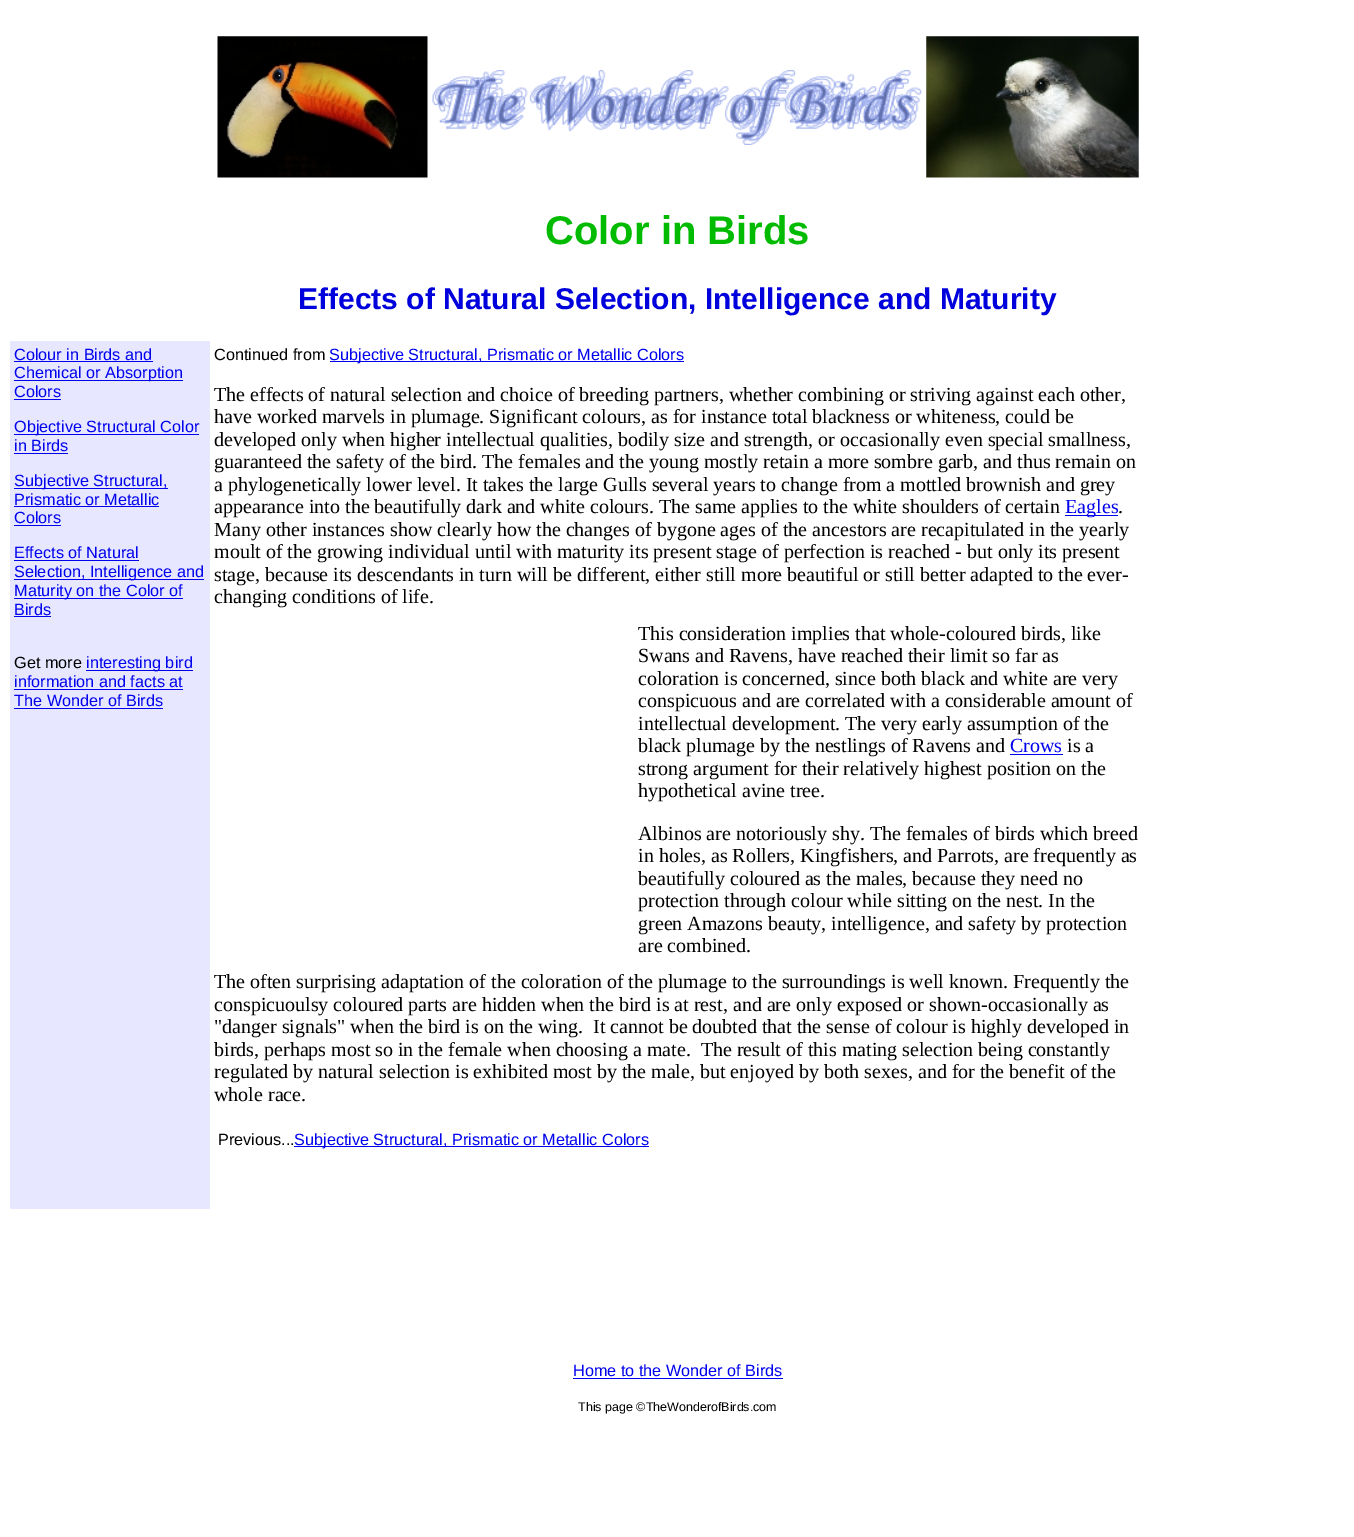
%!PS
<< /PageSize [1354 1537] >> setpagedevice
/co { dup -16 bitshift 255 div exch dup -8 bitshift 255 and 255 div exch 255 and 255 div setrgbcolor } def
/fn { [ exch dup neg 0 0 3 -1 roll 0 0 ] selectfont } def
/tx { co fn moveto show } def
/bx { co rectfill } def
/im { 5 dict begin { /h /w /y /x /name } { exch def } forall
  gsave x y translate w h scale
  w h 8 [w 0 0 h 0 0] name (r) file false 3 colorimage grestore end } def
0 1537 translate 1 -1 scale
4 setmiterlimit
0 0 1354 1537 16#FFFFFF bx
(media/1.raw) 217 36 211 142 im
(media/2.raw) 432 70 490 75 im
(media/3.raw) 926 36 213 142 im
10 341 200 868 16#E7E7FF bx
14 361 139 1 16#0000EE bx
14 380 169 1 16#0000EE bx
14 399 47 1 16#0000EE bx
14 434 185 1 16#0000EE bx
14 453 54 1 16#0000EE bx
14 488 154 1 16#0000EE bx
14 506 145 1 16#0000EE bx
14 525 47 1 16#0000EE bx
14 560 125 1 16#0000EE bx
14 579 190 1 16#0000EE bx
14 598 169 1 16#0000EE bx
14 616 37 1 16#0000EE bx
86 670 107 1 16#0000EE bx
14 689 169 1 16#0000EE bx
14 708 149 1 16#0000EE bx
330 361 354 1 16#0000EE bx
1065 515 53 1 16#0000EE bx
1010 754 53 1 16#0000EE bx
294 1146 355 1 16#0000EE bx
573 1378 210 1 16#0000EE bx
(Color in Birds) 545 244 /LiberationSans-Bold 40 16#00BB00 tx
(Effects of Natural Selection, Intelligence and Maturity) 298 309 /LiberationSans-Bold 30 16#0000DD tx
(Colour in Birds and) 14 360 /LiberationSans-Regular 16.25 16#0000EE tx
(Chemical or Absorption) 14 378 /LiberationSans-Regular 16.25 16#0000EE tx
(Colors) 14 397 /LiberationSans-Regular 16.25 16#0000EE tx
(Objective Structural Color) 14 432 /LiberationSans-Regular 16.25 16#0000EE tx
(in Birds) 14 451 /LiberationSans-Regular 16.25 16#0000EE tx
(Subjective Structural,) 14 486 /LiberationSans-Regular 16.25 16#0000EE tx
(Prismatic or Metallic) 14 505 /LiberationSans-Regular 16.25 16#0000EE tx
(Colors) 14 523 /LiberationSans-Regular 16.25 16#0000EE tx
(Effects of Natural) 14 558 /LiberationSans-Regular 16.25 16#0000EE tx
(Selection, Intelligence and) 14 577 /LiberationSans-Regular 16.25 16#0000EE tx
(Maturity on the Color of) 14 596 /LiberationSans-Regular 16.25 16#0000EE tx
(Birds) 14 615 /LiberationSans-Regular 16.25 16#0000EE tx
(Get more) 14 668 /LiberationSans-Regular 16.25 16#000000 tx
(interesting bird) 86 668 /LiberationSans-Regular 16.25 16#0000EE tx
(information and facts at) 14 687 /LiberationSans-Regular 16.25 16#0000EE tx
(The Wonder of Birds) 14 706 /LiberationSans-Regular 16.25 16#0000EE tx
(Continued from) 214 360 /LiberationSans-Regular 16.25 16#000000 tx
(Subjective Structural, Prismatic or Metallic Colors) 329 360 /LiberationSans-Regular 16.25 16#0000EE tx
(The effects of natural selection and choice of breeding partners, whether combining or striving against each other,) 214 401 /LiberationSerif-Regular 20 16#000000 tx
(have worked marvels in plumage. Significant colours, as for instance total blackness or whiteness, could be) 214 423 /LiberationSerif-Regular 20 16#000000 tx
(developed only when higher intellectual qualities, bodily size and strength, or occasionally even special smallness,) 214 446 /LiberationSerif-Regular 20 16#000000 tx
(guaranteed the safety of the bird. The females and the young mostly retain a more sombre garb, and thus remain on) 214 468 /LiberationSerif-Regular 20 16#000000 tx
(a phylogenetically lower level. It takes the large Gulls several years to change from a mottled brownish and grey) 214 491 /LiberationSerif-Regular 20 16#000000 tx
(appearance into the beautifully dark and white colours. The same applies to the white shoulders of certain) 214 513 /LiberationSerif-Regular 20 16#000000 tx
(Eagles) 1065 513 /LiberationSerif-Regular 20 16#0000EE tx
(.) 1118 513 /LiberationSerif-Regular 20 16#000000 tx
(Many other instances show clearly how the changes of bygone ages of the ancestors are recapitulated in the yearly) 214 536 /LiberationSerif-Regular 20 16#000000 tx
(moult of the growing individual until with maturity its present stage of perfection is reached - but only its present) 214 558 /LiberationSerif-Regular 20 16#000000 tx
(stage, because its descendants in turn will be different, either still more beautiful or still better adapted to the ever-) 214 581 /LiberationSerif-Regular 20 16#000000 tx
(changing conditions of life.) 214 603 /LiberationSerif-Regular 20 16#000000 tx
(This consideration implies that whole-coloured birds, like) 638 640 /LiberationSerif-Regular 20 16#000000 tx
(Swans and Ravens, have reached their limit so far as) 638 662 /LiberationSerif-Regular 20 16#000000 tx
(coloration is concerned, since both black and white are very) 638 685 /LiberationSerif-Regular 20 16#000000 tx
(conspicuous and are correlated with a considerable amount of) 638 707 /LiberationSerif-Regular 20 16#000000 tx
(intellectual development. The very early assumption of the) 638 730 /LiberationSerif-Regular 20 16#000000 tx
(black plumage by the nestlings of Ravens and) 638 752 /LiberationSerif-Regular 20 16#000000 tx
(Crows) 1010 752 /LiberationSerif-Regular 20 16#0000EE tx
(is a) 1067 752 /LiberationSerif-Regular 20 16#000000 tx
(strong argument for their relatively highest position on the) 638 775 /LiberationSerif-Regular 20 16#000000 tx
(hypothetical avine tree.) 638 797 /LiberationSerif-Regular 20 16#000000 tx
(Albinos are notoriously shy. The females of birds which breed) 638 840 /LiberationSerif-Regular 20 16#000000 tx
(in holes, as Rollers, Kingfishers, and Parrots, are frequently as) 638 862 /LiberationSerif-Regular 20 16#000000 tx
(beautifully coloured as the males, because they need no) 638 885 /LiberationSerif-Regular 20 16#000000 tx
(protection through colour while sitting on the nest. In the) 638 907 /LiberationSerif-Regular 20 16#000000 tx
(green Amazons beauty, intelligence, and safety by protection) 638 930 /LiberationSerif-Regular 20 16#000000 tx
(are combined.) 638 952 /LiberationSerif-Regular 20 16#000000 tx
(The often surprising adaptation of the coloration of the plumage to the surroundings is well known. Frequently the) 214 988 /LiberationSerif-Regular 20 16#000000 tx
(conspicuoulsy coloured parts are hidden when the bird is at rest, and are only exposed or shown-occasionally as) 214 1011 /LiberationSerif-Regular 20 16#000000 tx
("danger signals" when the bird is on the wing.  It cannot be doubted that the sense of colour is highly developed in) 214 1033 /LiberationSerif-Regular 20 16#000000 tx
(birds, perhaps most so in the female when choosing a mate.  The result of this mating selection being constantly) 214 1056 /LiberationSerif-Regular 20 16#000000 tx
(regulated by natural selection is exhibited most by the male, but enjoyed by both sexes, and for the benefit of the) 214 1078 /LiberationSerif-Regular 20 16#000000 tx
(whole race.) 214 1101 /LiberationSerif-Regular 20 16#000000 tx
(Previous...) 218 1145 /LiberationSans-Regular 16.25 16#000000 tx
(Subjective Structural, Prismatic or Metallic Colors) 294 1145 /LiberationSans-Regular 16.25 16#0000EE tx
(Home to the Wonder of Birds) 573 1376 /LiberationSans-Regular 16.25 16#0000EE tx
(This page ©TheWonderofBirds.com) 578 1411 /LiberationSans-Regular 12.5 16#000000 tx
showpage
